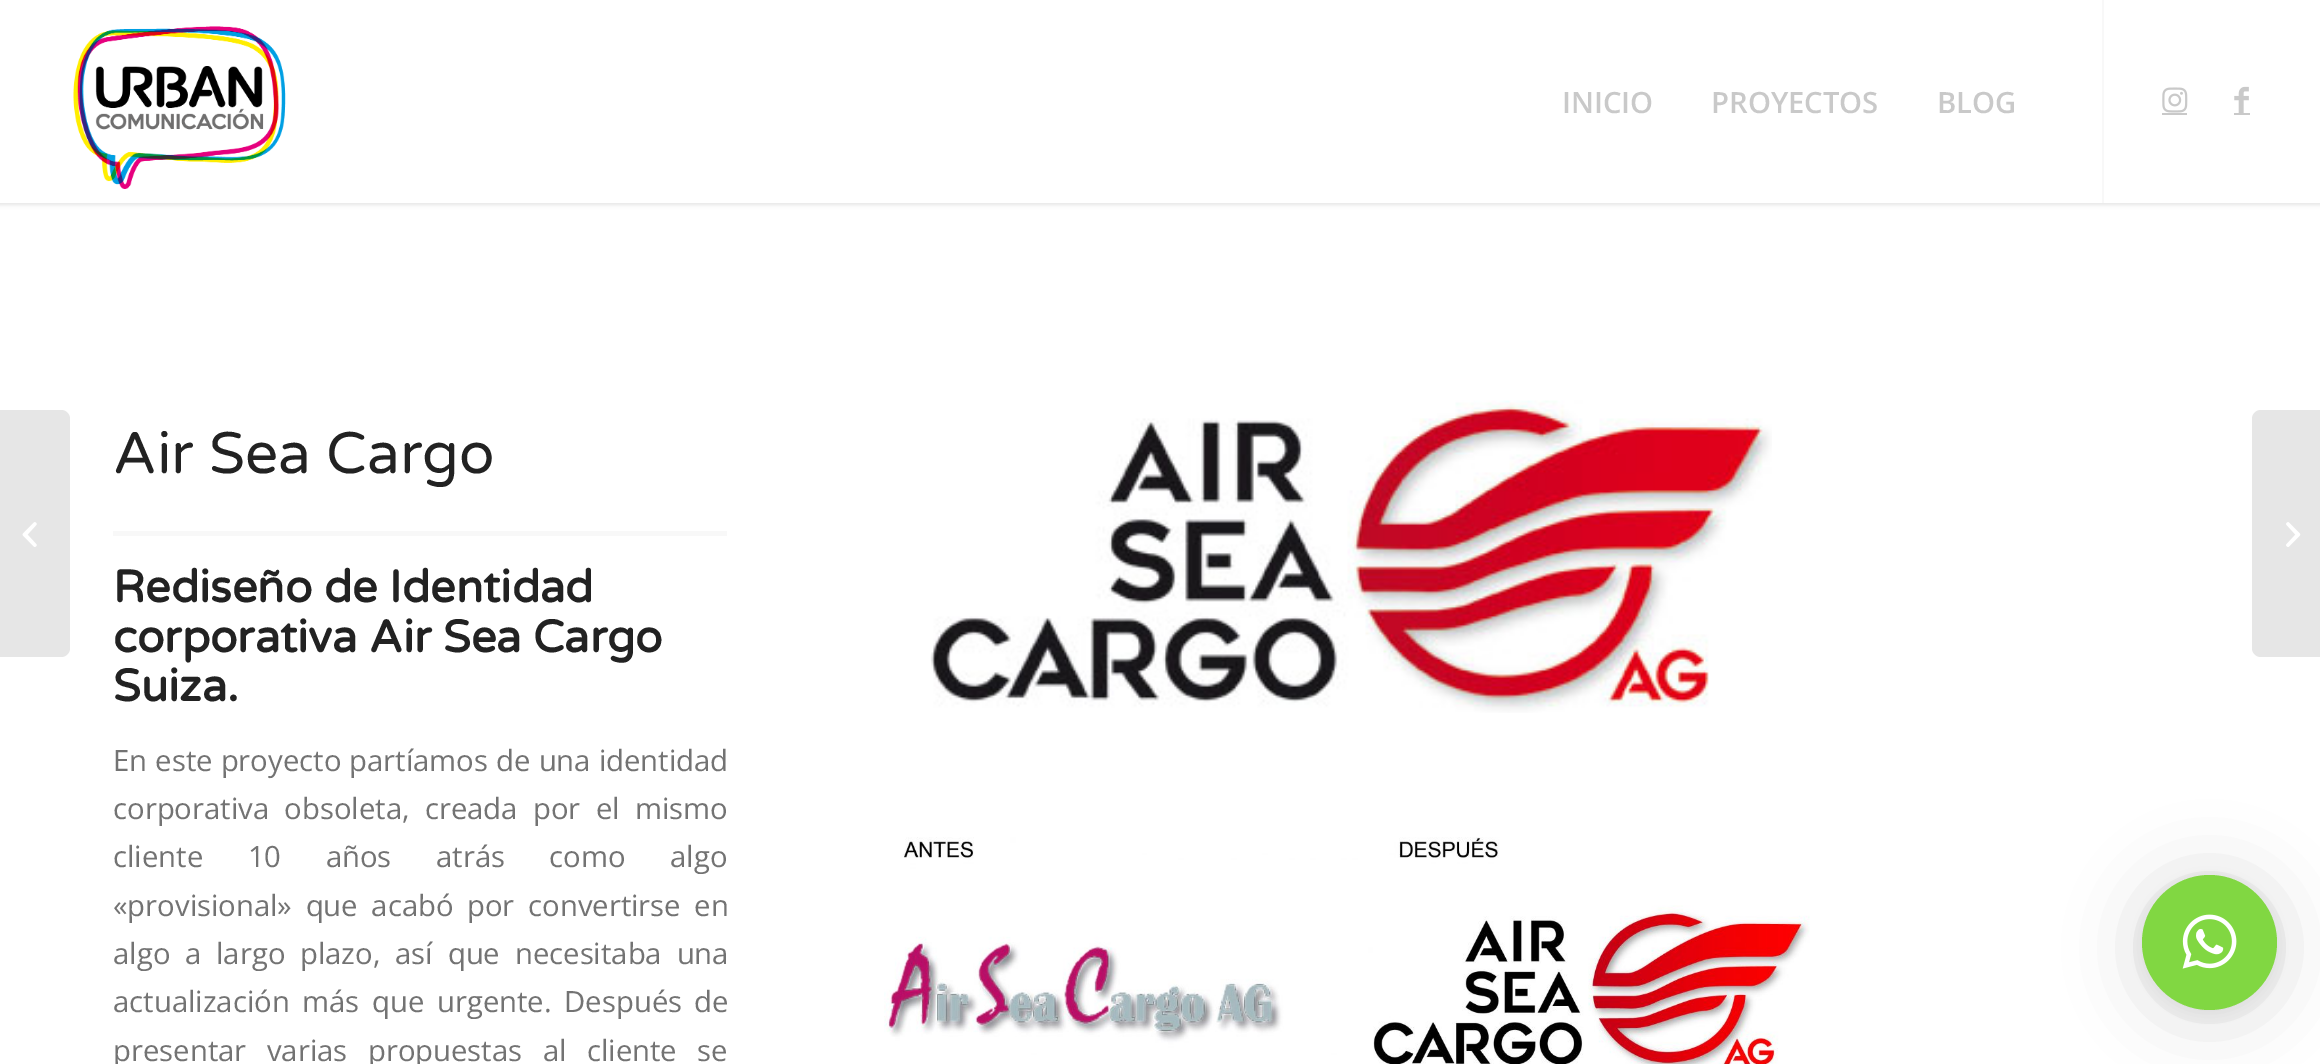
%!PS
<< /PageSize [2320 1064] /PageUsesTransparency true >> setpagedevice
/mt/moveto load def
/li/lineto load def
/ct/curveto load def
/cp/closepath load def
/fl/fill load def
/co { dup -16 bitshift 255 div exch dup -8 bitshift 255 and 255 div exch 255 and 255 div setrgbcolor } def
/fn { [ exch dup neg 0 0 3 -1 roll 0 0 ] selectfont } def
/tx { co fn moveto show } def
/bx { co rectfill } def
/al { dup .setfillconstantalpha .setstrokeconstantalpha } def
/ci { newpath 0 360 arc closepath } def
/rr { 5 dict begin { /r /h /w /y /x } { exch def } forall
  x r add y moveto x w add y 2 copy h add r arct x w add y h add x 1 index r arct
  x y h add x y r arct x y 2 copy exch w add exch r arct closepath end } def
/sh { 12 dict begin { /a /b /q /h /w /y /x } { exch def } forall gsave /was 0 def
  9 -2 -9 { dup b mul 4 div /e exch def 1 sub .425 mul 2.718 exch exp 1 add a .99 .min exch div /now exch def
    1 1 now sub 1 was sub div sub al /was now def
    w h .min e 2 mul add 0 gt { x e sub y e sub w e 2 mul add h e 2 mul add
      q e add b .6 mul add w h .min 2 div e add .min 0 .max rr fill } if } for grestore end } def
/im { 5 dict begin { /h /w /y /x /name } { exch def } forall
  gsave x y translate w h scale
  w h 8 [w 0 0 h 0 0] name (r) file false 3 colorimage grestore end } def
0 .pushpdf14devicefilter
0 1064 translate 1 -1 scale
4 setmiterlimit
0 0 2320 1064 16#FFFFFF bx
16#000000 co
-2 -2 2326 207 0 2 .1 sh
0 0 2320 203 16#FFFFFF bx
(media/1.raw) 73 26 213 163 im
2102 0 2 203 16#F8F8F8 bx
(media/2.raw) 2162 87 26 26 im
2162 113 25 2 16#C9C9C9 bx
(media/3.raw) 2234 86 15 27 im
2234 113 16 2 16#C9C9C9 bx
16#E6E6E6 co
0 410 mt 61 410 li 66 410 70 414 70 419 ct 70 648 li 70 653 66 657 61 657 ct 0 657 li cp fl
(media/4.raw) 22 522 15 25 im
113 531 614 5 16#F8F8F8 bx
(media/5.raw) 930 400 842 313 im
(media/6.raw) 884 837 926 227 im
16#E6E6E6 co
2261 410 mt 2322 410 li 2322 657 li 2261 657 li 2256 657 2252 653 2252 648 ct 2252 419 li 2252 414 2256 410 2261 410 ct cp fl
(media/7.raw) 2286 522 15 25 im
16#000000 co
2142 880 135 135 67.5 36 .16 sh
2142 878 135 135 67.5 7 .06 sh
16#81D742 co
2209.5 942.5 67.5 ci fl
(media/8.raw) 2182 914 55 55 im
(INICIO) 1562 113 /OpenSans-SemiBold 29.25 16#C9C9C9 tx
(PROYECTOS) 1711 113 /OpenSans-SemiBold 29.25 16#C9C9C9 tx
(BLOG) 1937 113 /OpenSans-SemiBold 29.25 16#C9C9C9 tx
(Air Sea Cargo) 113 473 /VarelaRound-Regular 58.5 16#222222 tx
(Rediseño de Identidad) 113 602 /VarelaRound-Bold 45 16#222222 tx
(corporativa Air Sea Cargo) 113 652 /VarelaRound-Bold 45 16#222222 tx
(Suiza.) 113 701 /VarelaRound-Bold 45 16#222222 tx
/OpenSans-Regular 29.25 fn
16#737373 co
113 771 mt .5 0 32 (En este proyecto partíamos de una identidad) widthshow
113 819 mt 7.75 0 32 (corporativa obsoleta, creada por el mismo) widthshow
113 867 mt 37 0 32 (cliente 10 años atrás como algo) widthshow
113 916 mt 6 0 32 («provisional» que acabó por convertirse en) widthshow
113 964 mt 7.25 0 32 (algo a largo plazo, así que necesitaba una) widthshow
113 1012 mt 5 0 32 (actualización más que urgente. Después de) widthshow
113 1061 mt 13 0 32 (presentar varias propuestas al cliente se) widthshow
.poppdf14devicefilter showpage
